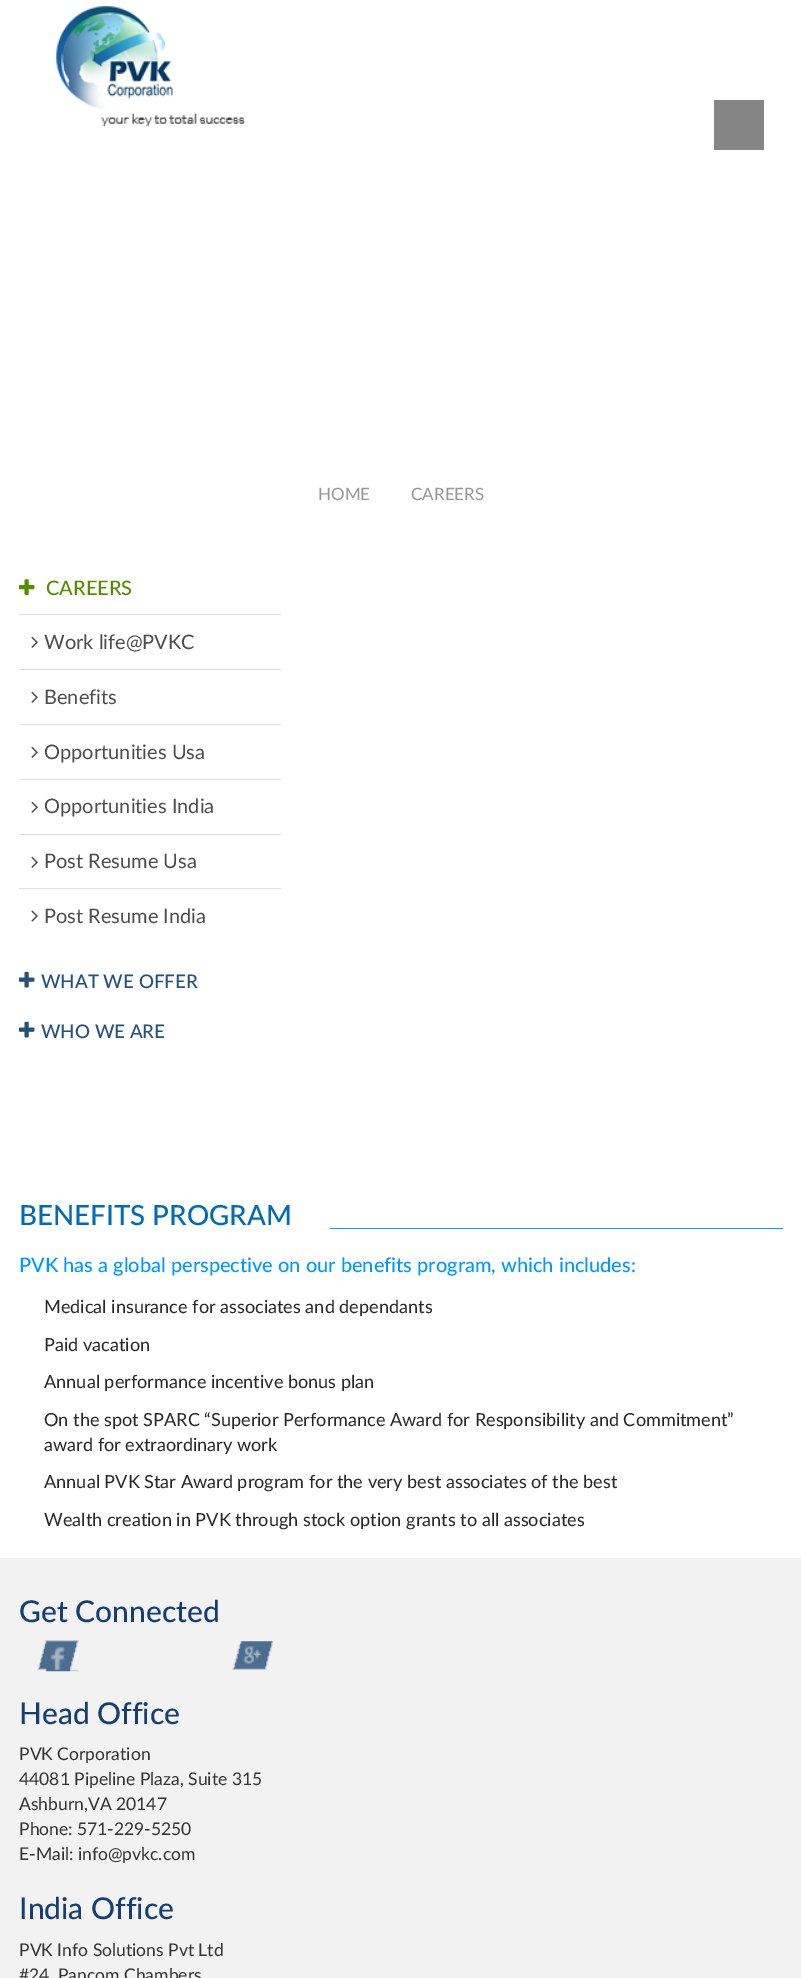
%!PS
<< /PageSize [801 1978] >> setpagedevice
/co { dup -16 bitshift 255 div exch dup -8 bitshift 255 and 255 div exch 255 and 255 div setrgbcolor } def
/fn { [ exch dup neg 0 0 3 -1 roll 0 0 ] selectfont } def
/tx { co fn moveto show } def
/bx { co rectfill } def
/im { 5 dict begin { /h /w /y /x /name } { exch def } forall
  gsave x y translate w h scale
  w h 8 [w 0 0 h 0 0] name (r) file false 3 colorimage grestore end } def
0 1978 translate 1 -1 scale
4 setmiterlimit
0 0 801 1978 16#FFFFFF bx
(media/1.raw) 56 6 189 121 im
714 100 50 50 16#858585 bx
(media/2.raw) 19 579 16 16 im
19 614 262 1 16#DCDDDE bx
(media/3.raw) 31 636 7 12 im
19 669 262 1 16#DCDDDE bx
(media/3.raw) 31 691 7 12 im
19 724 262 1 16#DCDDDE bx
(media/3.raw) 31 746 7 12 im
19 779 262 1 16#DCDDDE bx
(media/3.raw) 31 801 7 12 im
19 834 262 1 16#DCDDDE bx
(media/3.raw) 31 856 7 12 im
19 888 262 1 16#DCDDDE bx
(media/4.raw) 31 910 7 12 im
(media/5.raw) 19 971 16 17 im
(media/5.raw) 19 1021 16 17 im
330 1228 453 1 16#00A6FF bx
0 1558 801 420 16#F2F2F2 bx
(media/6.raw) 37 1640 42 32 im
(media/7.raw) 232 1641 42 29 im
(HOME) 318 500 /Lato-Regular 17 16#979797 tx
(CAREERS) 411 500 /Lato-Regular 17 16#979797 tx
(CAREERS) 46 595 /Lato-Medium 20 16#578E00 tx
(Work life@PVKC) 44 649 /Lato-Regular 20 16#4D4D4D tx
(Benefits) 44 704 /Lato-Regular 20 16#4D4D4D tx
(Opportunities Usa) 44 759 /Lato-Regular 20 16#4D4D4D tx
(Opportunities India) 44 813 /Lato-Regular 20 16#4D4D4D tx
(Post Resume Usa) 44 868 /Lato-Regular 20 16#4D4D4D tx
(Post Resume India) 44 923 /Lato-Regular 20 16#4D4D4D tx
(WHAT WE OFFER) 41 988 /Lato-Medium 18.75 16#23527C tx
(WHO WE ARE) 41 1038 /Lato-Medium 18.75 16#23527C tx
(BENEFITS PROGRAM) 19 1225 /Lato-Medium 27.75 16#006BB6 tx
(PVK has a global perspective on our benefits program, which includes:) 19 1272 /Lato-Medium 20 16#0099FF tx
(Medical insurance for associates and dependants) 44 1313 /Lato-Regular 18.1 16#272727 tx
(Paid vacation) 44 1351 /Lato-Regular 18.1 16#272727 tx
(Annual performance incentive bonus plan) 44 1388 /Lato-Regular 18.1 16#272727 tx
(On the spot SPARC “Superior Performance Award for Responsibility and Commitment”) 44 1426 /Lato-Regular 18.1 16#272727 tx
(award for extraordinary work) 44 1451 /Lato-Regular 18.1 16#272727 tx
(Annual PVK Star Award program for the very best associates of the best) 44 1488 /Lato-Regular 18.1 16#272727 tx
(Wealth creation in PVK through stock option grants to all associates) 44 1526 /Lato-Regular 18.1 16#272727 tx
(Get Connected) 19 1622 /Lato-Medium 30 16#143F76 tx
(Head Office) 19 1724 /Lato-Medium 30 16#143F76 tx
(PVK Corporation) 19 1760 /Lato-Regular 17.5 16#333333 tx
(44081 Pipeline Plaza, Suite 315) 19 1785 /Lato-Regular 17.5 16#333333 tx
(Ashburn,VA 20147) 19 1810 /Lato-Regular 17.5 16#333333 tx
(Phone: 571-229-5250) 19 1835 /Lato-Regular 17.5 16#333333 tx
(E-Mail: info@pvkc.com) 19 1860 /Lato-Regular 17.5 16#333333 tx
(India Office) 19 1919 /Lato-Medium 30 16#143F76 tx
(PVK Info Solutions Pvt Ltd) 19 1956 /Lato-Regular 17.5 16#333333 tx
(#24, Pancom Chambers) 19 1981 /Lato-Regular 17.5 16#333333 tx
showpage
